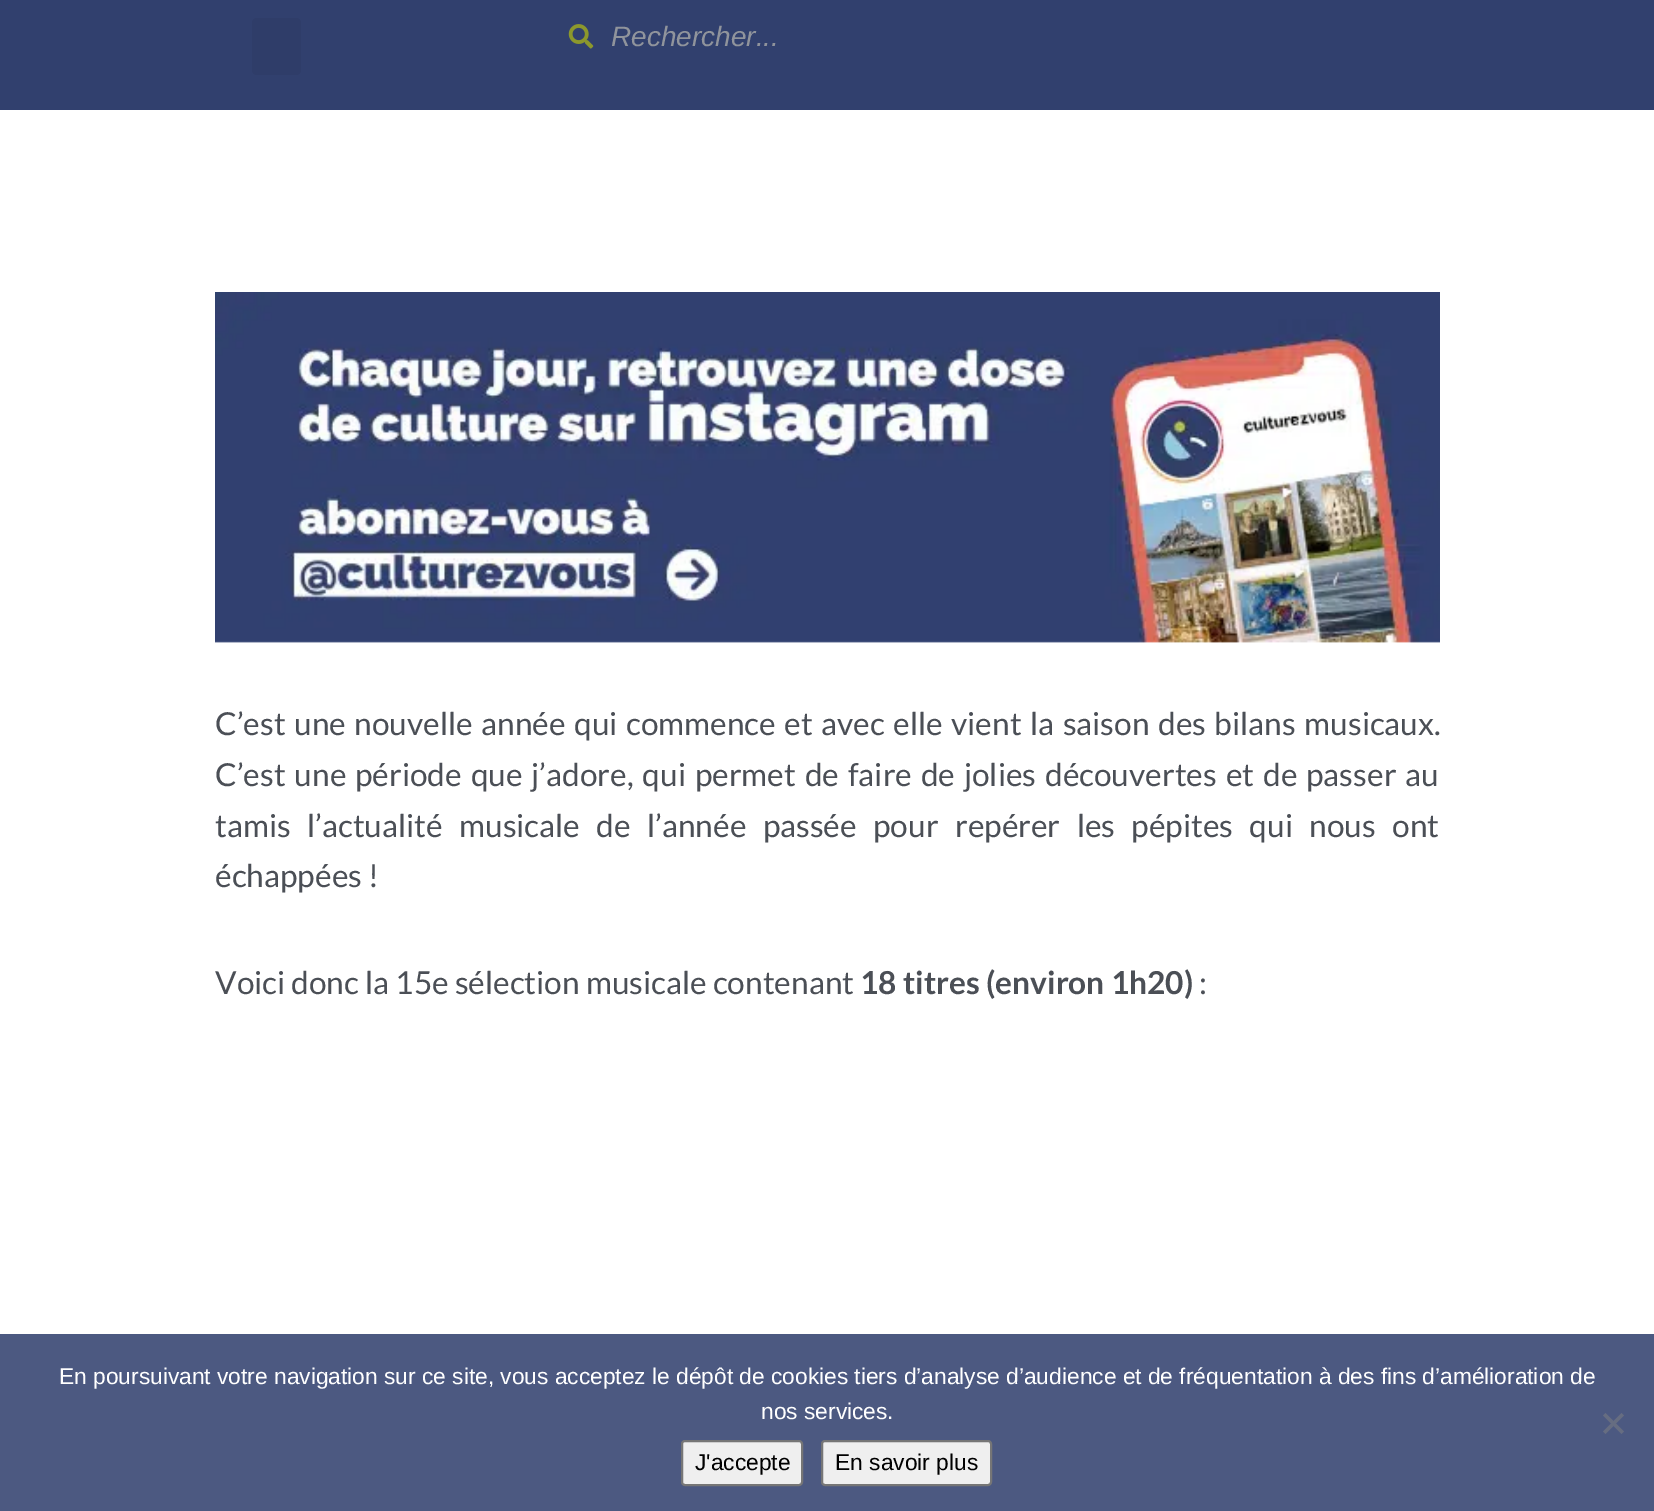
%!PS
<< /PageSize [1654 1511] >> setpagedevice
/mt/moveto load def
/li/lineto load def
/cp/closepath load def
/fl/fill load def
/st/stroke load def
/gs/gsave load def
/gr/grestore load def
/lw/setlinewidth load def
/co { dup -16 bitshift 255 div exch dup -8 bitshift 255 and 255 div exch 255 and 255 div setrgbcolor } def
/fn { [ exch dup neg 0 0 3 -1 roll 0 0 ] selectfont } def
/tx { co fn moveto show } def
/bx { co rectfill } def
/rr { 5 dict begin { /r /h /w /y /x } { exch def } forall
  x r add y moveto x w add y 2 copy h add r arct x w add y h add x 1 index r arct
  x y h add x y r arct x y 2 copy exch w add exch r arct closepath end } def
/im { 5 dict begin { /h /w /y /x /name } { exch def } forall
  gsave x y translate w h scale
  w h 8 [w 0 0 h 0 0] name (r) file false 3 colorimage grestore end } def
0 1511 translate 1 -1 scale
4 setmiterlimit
0 0 1654 1511 16#FFFFFF bx
0 0 1654 110 16#31406E bx
16#2F3D69 co
252 18 49 57 5 rr fl
(media/1.raw) 568 24 26 25 im
(media/2.raw) 215 292 1225 351 im
0 1334 1654 177 16#4C5981 bx
16#666D81 co
1621.5 1413 mt 1624 1415.5 li 1605.5 1434 li 1603 1431.5 li cp fl
1603 1415.5 mt 1605.5 1413 li 1624 1431.5 li 1621.5 1434 li cp fl
16#EFEFEF co
682 1441 120 44 3 rr gs fl gr
16#767676 co
2 lw
st
16#EFEFEF co
822 1441 169 44 3 rr gs fl gr
16#767676 co
st
(Rechercher...) 611 46 /LiberationSans-Italic 28 16#90949C tx
/Lato-Regular 31.65 fn
16#4B4F56 co
215 735 mt 2.4 0 32 (C’est une nouvelle année qui commence et avec elle vient la saison des bilans musicaux.) widthshow
215 786 mt 2.75 0 32 (C’est une période que j’adore, qui permet de faire de jolies découvertes et de passer au) widthshow
215 837 mt 10.25 0 32 (tamis l’actualité musicale de l’année passée pour repérer les pépites qui nous ont) widthshow
(échappées !) 215 887 /Lato-Regular 31.65 16#4B4F56 tx
(Voici donc la 15e sélection musicale contenant) 215 994 /Lato-Regular 31.65 16#4B4F56 tx
(18 titres \(environ 1h20\)) 860 994 /Lato-Bold 31.65 16#4B4F56 tx
(:) 1199 994 /Lato-Regular 31.65 16#4B4F56 tx
(En poursuivant votre navigation sur ce site, vous acceptez le dépôt de cookies tiers d’analyse d’audience et de fréquentation à des fins d’amélioration de) 59 1384 /LiberationSans-Regular 22.75 16#FFFFFF tx
(nos services.) 761 1419 /LiberationSans-Regular 22.75 16#FFFFFF tx
(J'accepte) 695 1470 /LiberationSans-Regular 22.75 16#000000 tx
(En savoir plus) 835 1470 /LiberationSans-Regular 22.75 16#000000 tx
showpage
